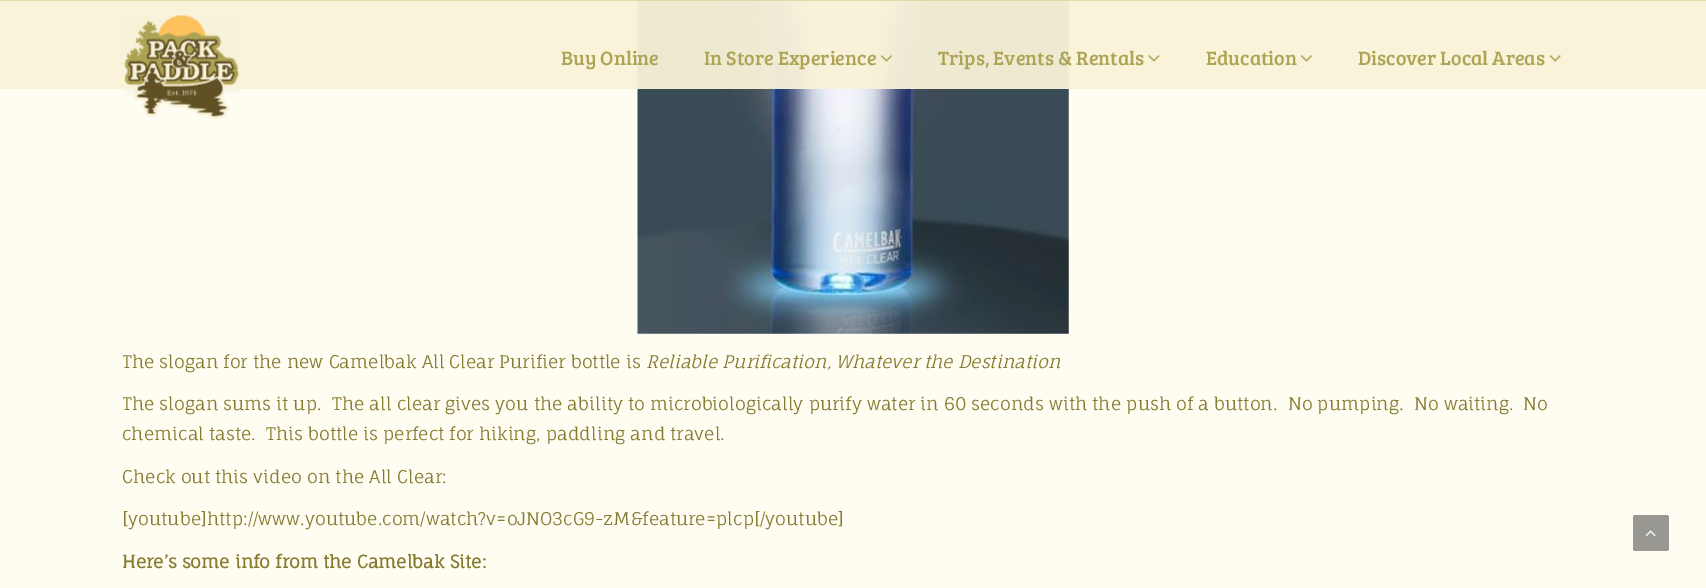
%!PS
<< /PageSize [1706 588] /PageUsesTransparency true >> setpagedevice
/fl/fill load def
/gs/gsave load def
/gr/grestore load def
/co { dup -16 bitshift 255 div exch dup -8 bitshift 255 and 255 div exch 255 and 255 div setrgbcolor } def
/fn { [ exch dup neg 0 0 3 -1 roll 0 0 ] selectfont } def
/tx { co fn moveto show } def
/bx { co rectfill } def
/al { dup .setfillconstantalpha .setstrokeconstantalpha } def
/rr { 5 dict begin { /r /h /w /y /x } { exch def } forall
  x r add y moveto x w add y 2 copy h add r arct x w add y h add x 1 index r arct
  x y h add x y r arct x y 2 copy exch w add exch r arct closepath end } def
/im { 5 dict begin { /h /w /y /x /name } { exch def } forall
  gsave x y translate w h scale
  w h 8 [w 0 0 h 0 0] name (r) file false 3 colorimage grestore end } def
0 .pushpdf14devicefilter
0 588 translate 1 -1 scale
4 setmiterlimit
0 0 1706 588 16#FFFCF1 bx
(media/6.raw) 637 0 432 334 im
0.95 al
0 0 1706 89 16#F8F2D8 bx
0 0 1706 1 16#DFD9A4 bx
1 al
(media/1.raw) 124 15 116 104 im
(media/2.raw) 880 55 12 7 im
(media/3.raw) 1148 55 12 7 im
(media/4.raw) 1300 55 12 7 im
(media/5.raw) 1549 55 12 7 im
16#999791 co
1633 515 36 36 2.5 rr fl
(media/7.raw) 1645 530 11 6 im
(Buy Online) 561 65 /BreeSerif-Regular 20 16#AEA455 tx
(In Store Experience) 704 65 /BreeSerif-Regular 20 16#AEA455 tx
(Trips, Events & Rentals) 938 65 /BreeSerif-Regular 20 16#AEA455 tx
(Education) 1206 65 /BreeSerif-Regular 20 16#AEA455 tx
(Discover Local Areas) 1358 65 /BreeSerif-Regular 20 16#AEA455 tx
gs
123 0 1462 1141 rectclip
(The slogan for the new Camelbak All Clear Purifier bottle is) 122 368 /FaunaOne-Regular 17.5 16#847B30 tx
gr
(Reliable Purification, Whatever the Destination) 646 368 /FaunaOne-Italic 17.5 16#847B30 tx
gs
123 0 1462 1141 rectclip
(The slogan sums it up.  The all clear gives you the ability to microbiologically purify water in 60 seconds with the push of a button.  No pumping.  No waiting.  No) 122 410 /FaunaOne-Regular 17.5 16#847B30 tx
gr
(chemical taste.  This bottle is perfect for hiking, paddling and travel.) 122 440 /FaunaOne-Regular 17.5 16#847B30 tx
(Check out this video on the All Clear:) 122 483 /FaunaOne-Regular 17.5 16#847B30 tx
([youtube]http://www.youtube.com/watch?v=oJNO3cG9-zM&feature=plcp[/youtube]) 122 525 /FaunaOne-Regular 17.5 16#847B30 tx
(Here’s some info from the Camelbak Site:) 122 568 /FaunaOne-Bold 17.5 16#847B30 tx
.poppdf14devicefilter showpage
